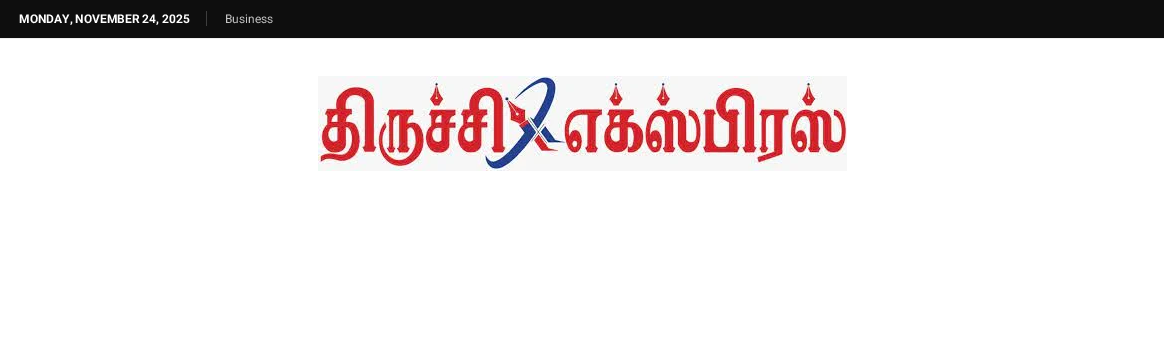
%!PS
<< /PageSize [1164 338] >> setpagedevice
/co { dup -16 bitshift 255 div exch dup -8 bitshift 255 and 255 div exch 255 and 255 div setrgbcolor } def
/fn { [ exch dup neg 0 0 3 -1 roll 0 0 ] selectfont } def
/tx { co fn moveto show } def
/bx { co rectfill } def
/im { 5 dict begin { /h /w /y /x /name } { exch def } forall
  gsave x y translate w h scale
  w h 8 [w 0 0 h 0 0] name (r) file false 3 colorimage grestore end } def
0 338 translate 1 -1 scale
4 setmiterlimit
0 0 1164 338 16#FFFFFF bx
0 0 1164 38 16#0E0E0E bx
0 38 1164 1 16#EFEFEF bx
206 11 1 15 16#3E3E3E bx
(media/1.raw) 318 76 529 95 im
(MONDAY, NOVEMBER 24, 2025) 19 23 /Roboto-Bold 12 16#FFFFFF tx
(Business) 225 23 /Roboto-Regular 12 16#C3C3C3 tx
showpage
